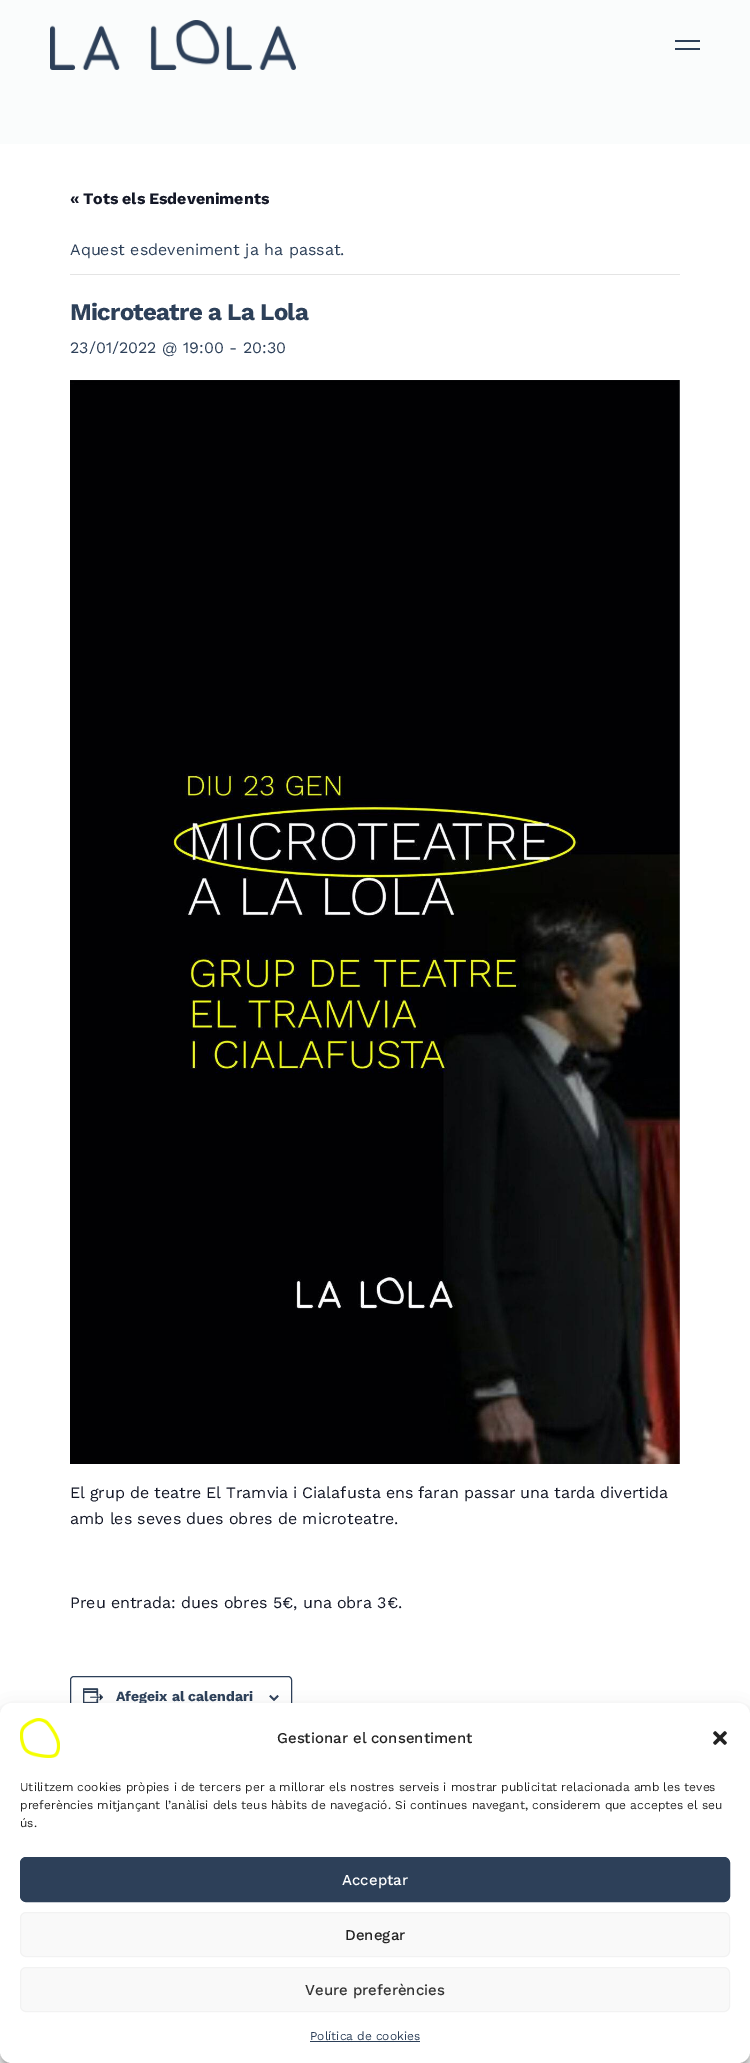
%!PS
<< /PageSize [750 2063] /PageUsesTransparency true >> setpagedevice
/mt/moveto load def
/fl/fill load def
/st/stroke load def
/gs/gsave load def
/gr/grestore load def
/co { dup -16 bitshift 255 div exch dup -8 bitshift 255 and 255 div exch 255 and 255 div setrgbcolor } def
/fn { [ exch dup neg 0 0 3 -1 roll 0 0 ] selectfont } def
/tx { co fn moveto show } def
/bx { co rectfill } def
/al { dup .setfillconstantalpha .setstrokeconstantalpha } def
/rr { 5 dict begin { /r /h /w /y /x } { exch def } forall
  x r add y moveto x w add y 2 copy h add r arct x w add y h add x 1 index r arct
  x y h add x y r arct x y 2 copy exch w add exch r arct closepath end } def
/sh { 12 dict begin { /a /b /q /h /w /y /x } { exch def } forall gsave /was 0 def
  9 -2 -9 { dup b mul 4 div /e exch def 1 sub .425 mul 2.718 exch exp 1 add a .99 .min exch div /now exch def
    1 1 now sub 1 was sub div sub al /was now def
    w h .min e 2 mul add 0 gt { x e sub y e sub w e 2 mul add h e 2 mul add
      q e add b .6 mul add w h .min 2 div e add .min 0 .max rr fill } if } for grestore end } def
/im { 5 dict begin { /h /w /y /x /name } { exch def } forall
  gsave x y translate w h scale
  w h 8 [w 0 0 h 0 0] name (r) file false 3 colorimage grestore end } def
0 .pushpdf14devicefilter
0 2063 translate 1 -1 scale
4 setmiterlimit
0 0 750 2063 16#FAFCFC bx
(media/1.raw) 50 20 246 50 im
675 40 25 2 16#2D4059 bx
675 48 25 2 16#2D4059 bx
0 144 750 1919 16#FFFFFF bx
70 274 610 1 16#E4E4E4 bx
(media/2.raw) 70 380 610 1084 im
16#2D4059 co
70.5 1676.5 221 40 3.5 rr st
(media/3.raw) 83 1688 21 15 im
(media/4.raw) 269 1695 10 6 im
16#000000 co
0 1709 750 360 12 3 .23 sh
0 1713 750 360 12 10 .19 sh
/WorkSans-Bold 16 fn
16#141827 co
70 204 mt -1 0 32 (« Tots els Esdeveniments) widthshow
(Aquest esdeveniment ja ha passat.) 70 255 /WorkSans-Regular 16 16#2D4059 tx
/WorkSans-Bold 24 fn
70 320 mt -.75 0 (Microteatre a La Lola) ashow
(23/01/2022 @ 19:00 - 20:30) 70 353 /WorkSans-Regular 16 16#2D4059 tx
16#141827 co
70 1498 mt -.6 0 32 (El grup de teatre El Tramvia i Cialafusta ens faran passar una tarda divertida) widthshow
70 1524 mt -.25 0 32 (amb les seves dues obres de microteatre.) widthshow
70 1608 mt -.25 0 32 (Preu entrada: dues obres 5€, una obra 3€.) widthshow
(Afegeix al calendari) 116 1701 /WorkSans-Bold 14 16#2D4059 tx
16#FFFFFF co
0 1703 750 360 12 rr fl
(media/5.raw) 20 1718 40 40 im
(Gestionar el consentiment) 277 1743 /WorkSans-Medium 15 16#222222 tx
(media/6.raw) 713 1731 14 14 im
(Utilitzem cookies pròpies i de tercers per a millorar els nostres serveis i mostrar publicitat relacionada amb les teves) 20 1791 /WorkSans-Regular 12 16#222222 tx
(preferències mitjançant l’anàlisi dels teus hàbits de navegació. Si continues navegant, considerem que acceptes el seu) 20 1809 /WorkSans-Regular 12 16#222222 tx
(ús.) 20 1827 /WorkSans-Regular 12 16#222222 tx
16#2D4059 co
20.5 1857.5 709 44 5.5 rr gs fl gr
st
(Acceptar) 342 1885 /WorkSans-Medium 15 16#FFFFFF tx
16#F9F9F9 co
20.5 1912.5 709 44 5.5 rr gs fl gr
16#F2F2F2 co
st
(Denegar) 345 1940 /WorkSans-Medium 15 16#222222 tx
16#F9F9F9 co
20.5 1967.5 709 44 5.5 rr gs fl gr
16#F2F2F2 co
st
(Veure preferències) 305 1995 /WorkSans-Medium 15 16#333333 tx
(Política de cookies) 310 2040 /WorkSans-Regular 12 16#2D4059 tx
310 2041 110 1 16#2D4059 bx
.poppdf14devicefilter showpage
